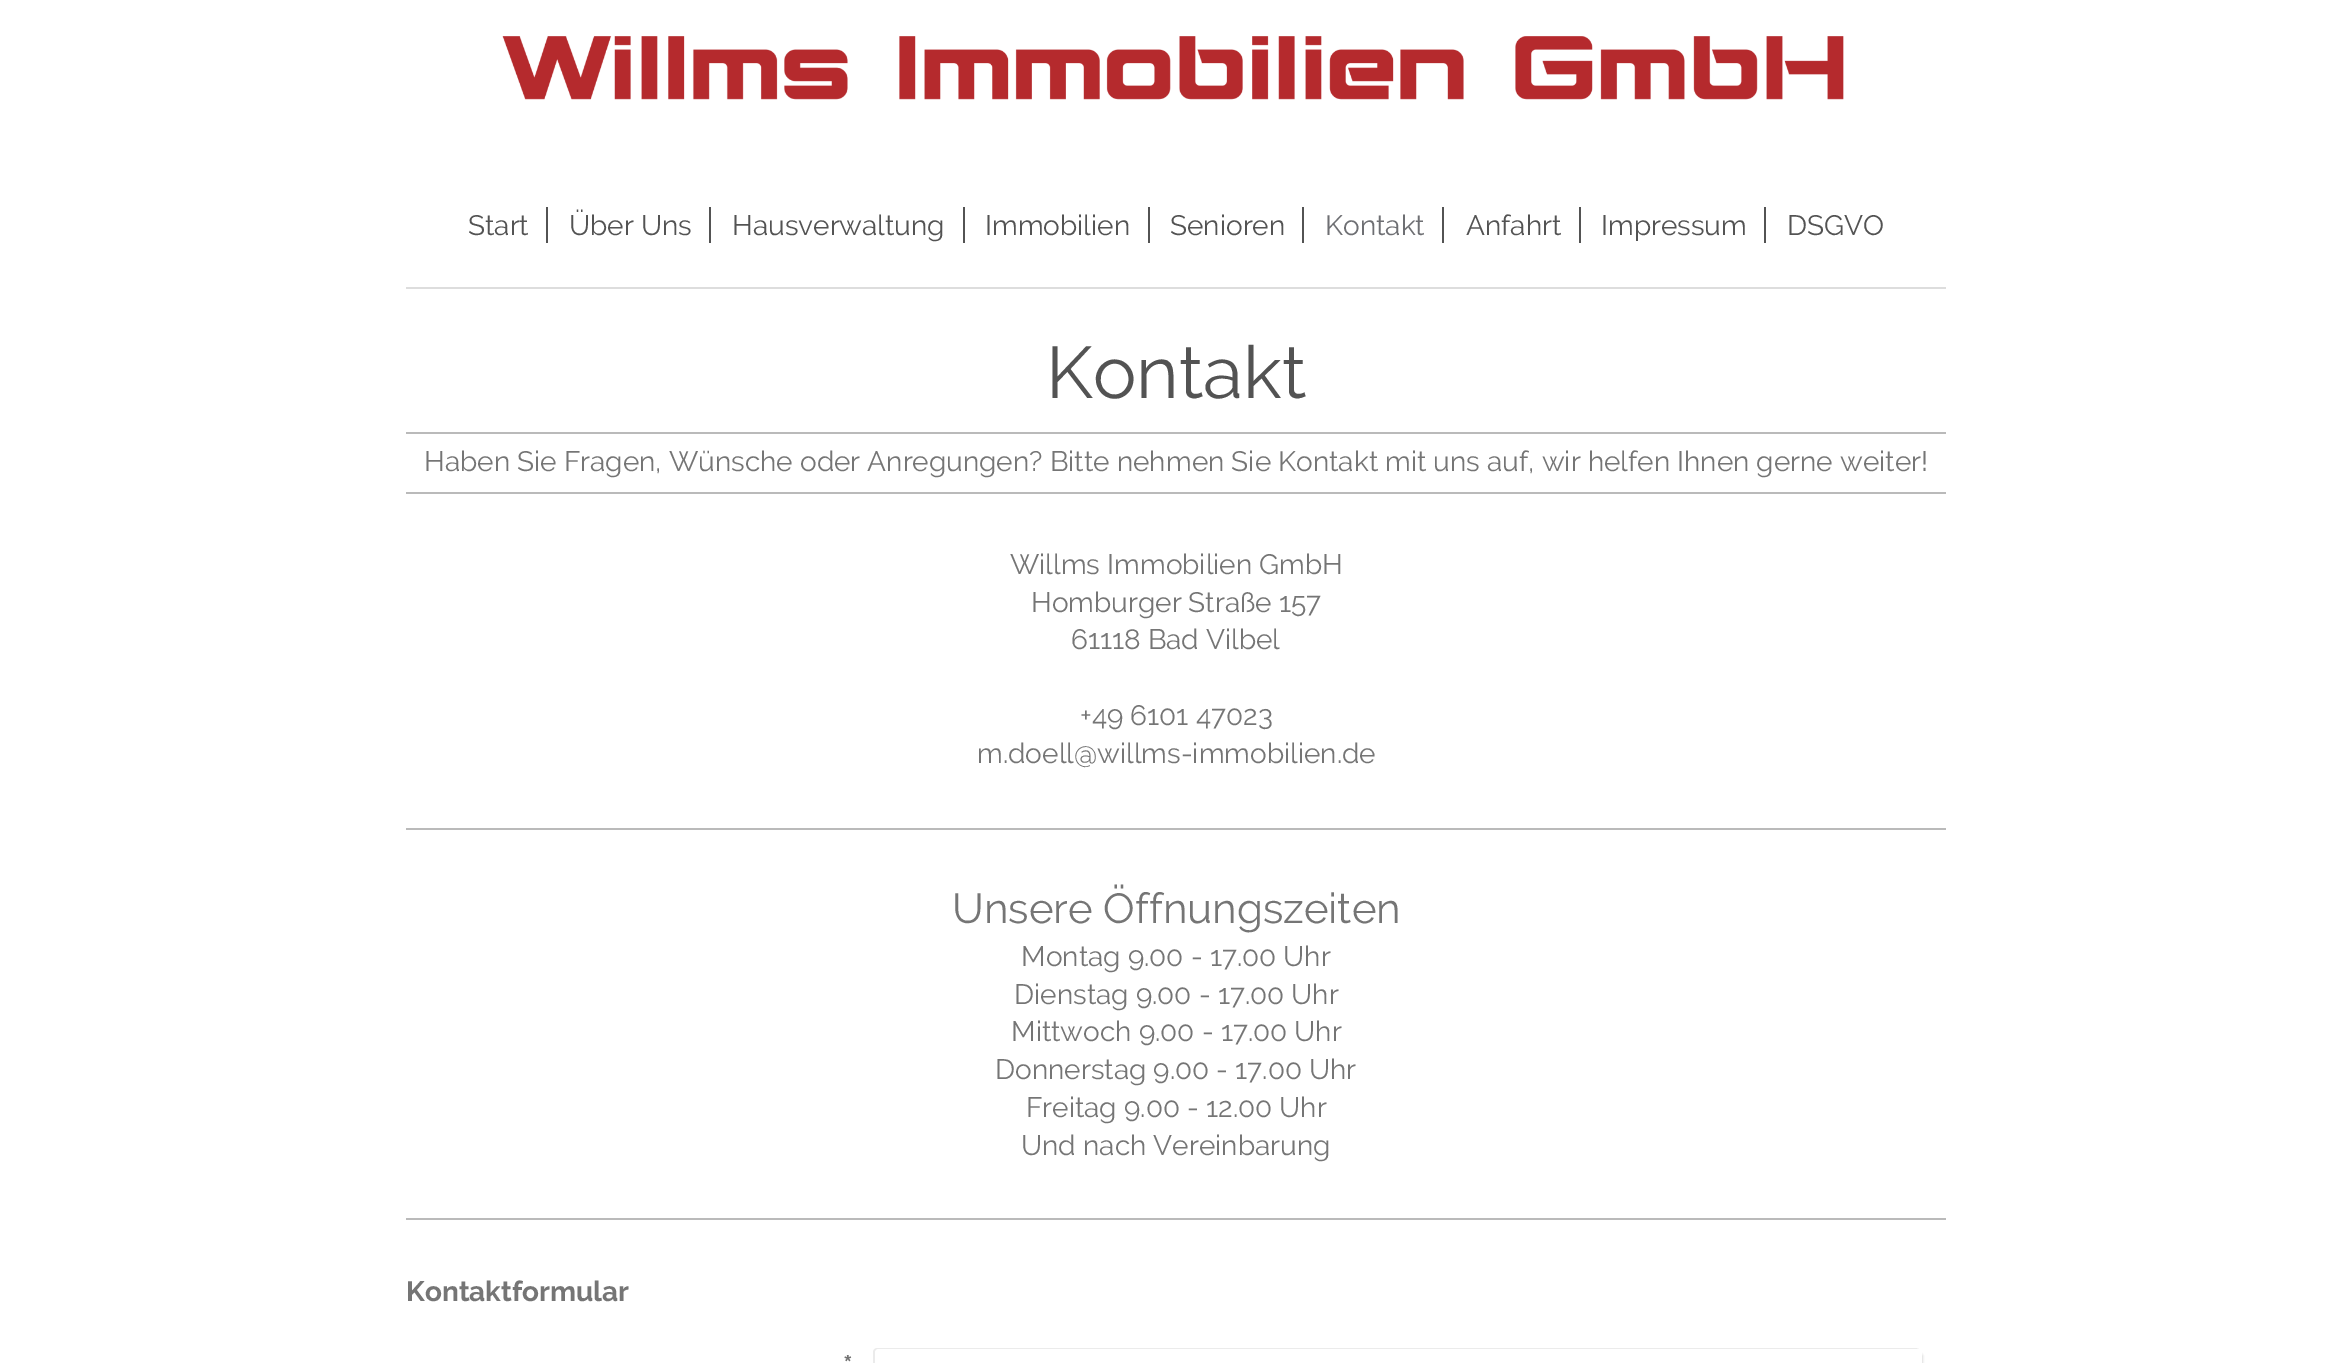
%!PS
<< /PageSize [2351 1363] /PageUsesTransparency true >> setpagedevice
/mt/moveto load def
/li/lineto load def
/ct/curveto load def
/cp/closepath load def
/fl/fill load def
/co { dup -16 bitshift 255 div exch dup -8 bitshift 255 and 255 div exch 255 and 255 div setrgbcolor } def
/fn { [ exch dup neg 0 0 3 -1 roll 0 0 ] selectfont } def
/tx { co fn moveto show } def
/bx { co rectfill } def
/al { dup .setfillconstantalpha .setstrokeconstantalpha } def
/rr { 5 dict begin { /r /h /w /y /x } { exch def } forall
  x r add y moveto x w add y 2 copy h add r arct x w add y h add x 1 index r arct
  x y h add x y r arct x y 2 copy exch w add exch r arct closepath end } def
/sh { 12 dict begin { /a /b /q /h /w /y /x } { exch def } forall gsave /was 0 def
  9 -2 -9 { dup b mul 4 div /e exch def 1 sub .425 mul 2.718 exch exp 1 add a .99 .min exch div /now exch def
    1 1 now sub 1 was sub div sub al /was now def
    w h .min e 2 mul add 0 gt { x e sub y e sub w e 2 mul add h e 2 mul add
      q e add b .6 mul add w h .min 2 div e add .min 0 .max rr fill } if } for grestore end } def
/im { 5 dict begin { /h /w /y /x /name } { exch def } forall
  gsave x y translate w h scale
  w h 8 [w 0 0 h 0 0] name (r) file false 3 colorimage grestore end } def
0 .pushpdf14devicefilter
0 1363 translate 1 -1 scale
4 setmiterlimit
0 0 2351 1363 16#FFFFFF bx
(media/1.raw) 502 36 1342 64 im
406 287 1540 2 16#DDDDDD bx
546 207 2 36 16#535353 bx
709 207 2 36 16#535353 bx
963 207 2 36 16#535353 bx
1148 207 2 36 16#535353 bx
1302 207 2 36 16#535353 bx
1442 207 2 36 16#535353 bx
1579 207 2 36 16#535353 bx
1764 207 2 36 16#535353 bx
406 432 1540 2 16#BABABA bx
406 492 1540 2 16#BABABA bx
406 828 1540 2 16#BABABA bx
406 1218 1540 2 16#BABABA bx
16#EBEBEB co
877 1348 mt 875 1348 873 1350 873 1352 ct 873 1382 li 873 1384 874 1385 875 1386 ct 875 1358 li 875 1355 874 1349 878 1349 ct 1919 1349 li 1918 1349 1917 1348 1916 1348 ct cp fl
16#000000 co
880 1356 1040 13 0 2 .8 sh
16#FFFFFF co
875 1349 1047 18 4 rr fl
(Start) 468 235 /Raleway-Regular 28 16#535353 tx
(Über Uns) 569 235 /Raleway-Regular 28 16#535353 tx
(Hausverwaltung) 732 235 /Raleway-Regular 28 16#535353 tx
(Immobilien) 985 235 /Raleway-Regular 28 16#535353 tx
(Senioren) 1170 235 /Raleway-Regular 28 16#535353 tx
(Kontakt) 1325 235 /Raleway-Regular 28 16#6E6F73 tx
(Anfahrt) 1466 235 /Raleway-Regular 28 16#535353 tx
(Impressum) 1601 235 /Raleway-Regular 28 16#535353 tx
(DSGVO) 1787 235 /Raleway-Regular 28 16#535353 tx
(Kontakt) 1046 398 /Raleway-Regular 73 16#535353 tx
(Haben Sie Fragen, Wünsche oder Anregungen? Bitte nehmen Sie Kontakt mit uns auf, wir helfen Ihnen gerne weiter!) 424 471 /Raleway-Regular 28 16#757575 tx
(Willms Immobilien GmbH) 1010 574 /Raleway-Regular 28 16#757575 tx
(Homburger Straße 157) 1031 612 /Raleway-Regular 28 16#757575 tx
(61118 Bad Vilbel) 1071 649 /Raleway-Regular 28 16#757575 tx
(+49 6101 47023) 1080 725 /Raleway-Regular 28 16#757575 tx
(m.doell@willms-immobilien.de) 977 763 /Raleway-Regular 28 16#757575 tx
(Unsere Öffnungszeiten) 952 923 /Raleway-Regular 42 16#757575 tx
(Montag 9.00 - 17.00 Uhr) 1021 966 /Raleway-Regular 28 16#757575 tx
(Dienstag 9.00 - 17.00 Uhr) 1014 1004 /Raleway-Regular 28 16#757575 tx
(Mittwoch 9.00 - 17.00 Uhr) 1011 1041 /Raleway-Regular 28 16#757575 tx
(Donnerstag 9.00 - 17.00 Uhr) 995 1079 /Raleway-Regular 28 16#757575 tx
(Freitag 9.00 - 12.00 Uhr) 1026 1117 /Raleway-Regular 28 16#757575 tx
(Und nach Vereinbarung) 1021 1155 /Raleway-Regular 28 16#757575 tx
(Kontaktformular) 406 1301 /Raleway-Bold 28 16#757575 tx
(*) 843 1375 /Raleway-Bold 28 16#757575 tx
.poppdf14devicefilter showpage
